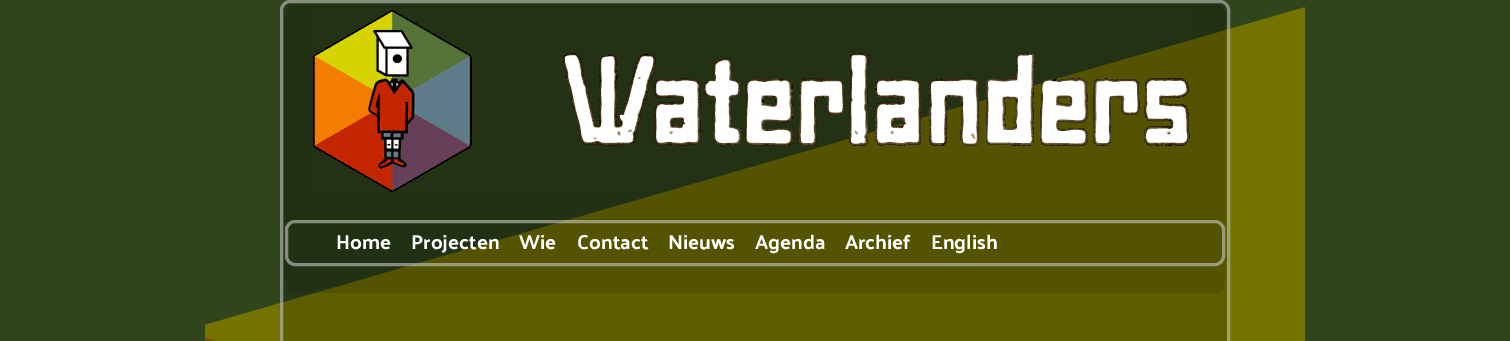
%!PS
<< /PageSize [1510 341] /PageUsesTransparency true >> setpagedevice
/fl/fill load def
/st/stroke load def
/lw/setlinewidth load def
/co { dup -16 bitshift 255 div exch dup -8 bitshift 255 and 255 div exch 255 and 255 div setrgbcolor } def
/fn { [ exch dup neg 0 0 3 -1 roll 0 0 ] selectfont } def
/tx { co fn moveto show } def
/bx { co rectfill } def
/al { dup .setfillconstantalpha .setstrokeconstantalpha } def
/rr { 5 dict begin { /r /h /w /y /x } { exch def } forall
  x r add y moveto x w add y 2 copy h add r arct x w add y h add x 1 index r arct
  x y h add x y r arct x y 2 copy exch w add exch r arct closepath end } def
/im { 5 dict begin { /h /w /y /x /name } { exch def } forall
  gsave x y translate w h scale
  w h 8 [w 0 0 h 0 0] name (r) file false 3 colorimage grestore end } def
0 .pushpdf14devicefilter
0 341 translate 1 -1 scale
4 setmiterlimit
0 0 1510 341 16#30451C bx
(media/1.raw) 205 7 1100 334 im
0.2 al
16#000000 co
280 0 950 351 10 rr fl
0.6 al
16#C8C8C8 co
3 lw
281.5 1.5 947 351 8.5 rr st
0.1 al
16#000000 co
285 5 940 288 10 rr fl
1 al
(media/2.raw) 313 10 877 182 im
0.6 al
16#C8C8C8 co
286.5 221.5 937 43 8.5 rr st
1 al
(Home) 336 249 /PalanquinDark-Regular 20.25 16#FFFFFF tx
(Projecten) 411 249 /PalanquinDark-Regular 20.25 16#FFFFFF tx
(Wie) 519 249 /PalanquinDark-Regular 20.25 16#FFFFFF tx
(Contact) 577 249 /PalanquinDark-Regular 20.25 16#FFFFFF tx
(Nieuws) 668 249 /PalanquinDark-Regular 20.25 16#FFFFFF tx
(Agenda) 755 249 /PalanquinDark-Regular 20.25 16#FFFFFF tx
(Archief) 845 249 /PalanquinDark-Regular 20.25 16#FFFFFF tx
(English) 931 249 /PalanquinDark-Regular 20.25 16#FFFFFF tx
.poppdf14devicefilter showpage
